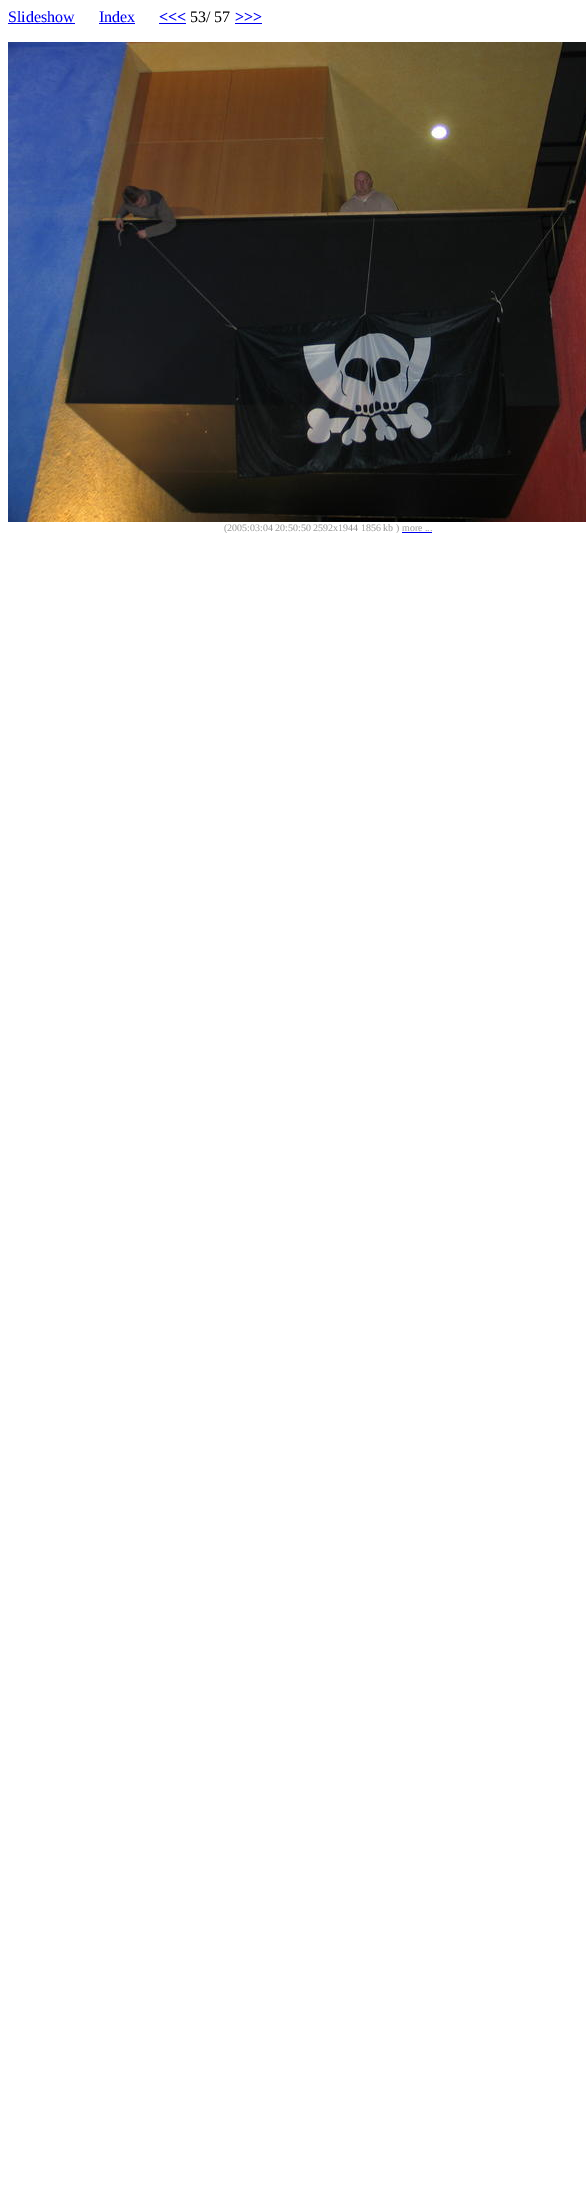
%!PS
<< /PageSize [586 2195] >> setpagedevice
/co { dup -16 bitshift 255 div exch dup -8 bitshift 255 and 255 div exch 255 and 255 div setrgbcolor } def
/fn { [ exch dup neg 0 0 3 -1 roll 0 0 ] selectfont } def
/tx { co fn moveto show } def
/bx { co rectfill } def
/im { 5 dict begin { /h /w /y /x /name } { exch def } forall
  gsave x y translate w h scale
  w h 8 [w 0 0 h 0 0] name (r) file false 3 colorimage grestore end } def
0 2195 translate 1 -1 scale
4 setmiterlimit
0 0 586 2195 16#FFFFFF bx
8 23 67 1 16#0000EE bx
99 23 36 1 16#0000EE bx
159 23 27 1 16#0000EE bx
235 23 27 1 16#0000EE bx
(media/1.raw) 8 42 578 480 im
(Slideshow) 8 22 /LiberationSerif-Regular 16 16#0000EE tx
(Index) 99 22 /LiberationSerif-Regular 16 16#0000EE tx
(<<<) 159 22 /LiberationSerif-Bold 16 16#0000EE tx
(53/ 57) 190 22 /LiberationSerif-Regular 16 16#000000 tx
(>>>) 235 22 /LiberationSerif-Bold 16 16#0000EE tx
(\(2005:03:04 20:50:50 2592x1944 1856 kb \) more ...) 224 531 /LiberationSerif-Regular 10 16#999999 tx
402 532 30 1 16#0000EE bx
showpage
